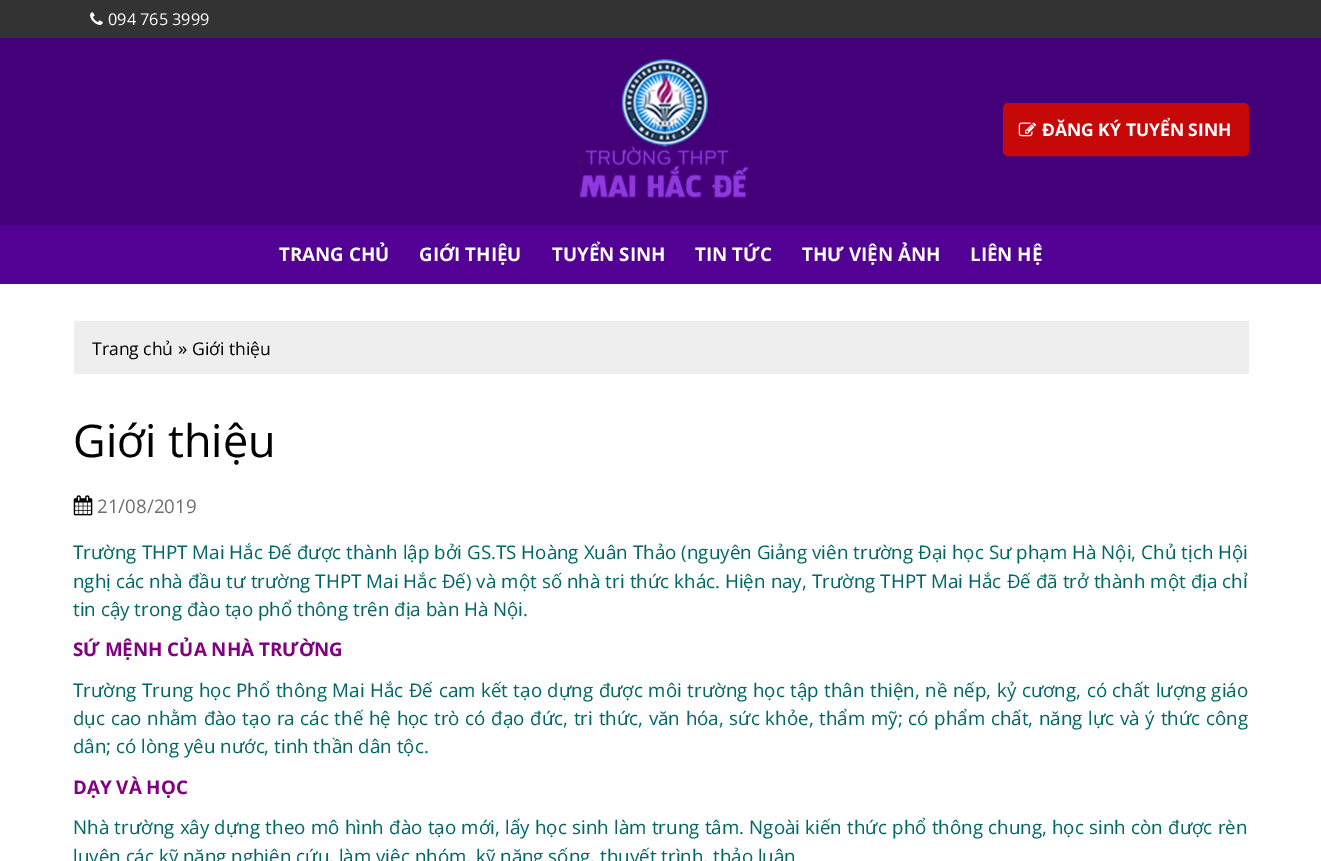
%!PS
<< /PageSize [1321 861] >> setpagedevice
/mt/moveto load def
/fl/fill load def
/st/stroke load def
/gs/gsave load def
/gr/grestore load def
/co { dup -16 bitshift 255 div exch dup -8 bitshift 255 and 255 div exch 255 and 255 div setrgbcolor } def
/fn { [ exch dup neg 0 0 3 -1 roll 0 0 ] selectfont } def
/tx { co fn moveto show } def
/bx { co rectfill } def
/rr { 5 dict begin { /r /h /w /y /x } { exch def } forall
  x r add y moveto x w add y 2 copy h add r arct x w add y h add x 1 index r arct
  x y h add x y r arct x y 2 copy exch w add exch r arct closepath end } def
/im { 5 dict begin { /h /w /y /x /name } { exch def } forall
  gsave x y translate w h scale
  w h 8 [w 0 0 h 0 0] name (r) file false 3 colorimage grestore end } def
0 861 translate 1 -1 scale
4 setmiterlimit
0 0 1321 861 16#FFFFFF bx
0 38 1321 187 16#440079 bx
0 0 1321 38 16#333333 bx
(media/1.raw) 90 12 13 13 im
(media/2.raw) 580 59 170 139 im
16#C70808 co
1003.5 103.5 245 52 4.5 rr gs fl gr
st
(media/3.raw) 1018 122 19 15 im
0 225 1321 59 16#530095 bx
74 321 1175 53 16#EEEEEE bx
(media/4.raw) 73 495 20 21 im
(094 765 3999) 108 25 /OpenSans-Regular 16.25 16#FFFFFF tx
(ĐĂNG KÝ TUYỂN SINH) 1042 136 /OpenSans-Bold 17.5 16#FFFFFF tx
(TRANG CHỦ) 279 261 /OpenSans-Bold 18.75 16#FFFFFF tx
(GIỚI THIỆU) 419 261 /OpenSans-Bold 18.75 16#FFFFFF tx
(TUYỂN SINH) 552 261 /OpenSans-Bold 18.75 16#FFFFFF tx
(TIN TỨC) 695 261 /OpenSans-Bold 18.75 16#FFFFFF tx
(THƯ VIỆN ẢNH) 802 261 /OpenSans-Bold 18.75 16#FFFFFF tx
(LIÊN HỆ) 970 261 /OpenSans-Bold 18.75 16#FFFFFF tx
(Trang chủ) 92 355 /OpenSans-Regular 17.5 16#000000 tx
(») 178 355 /OpenSans-Regular 18.75 16#000000 tx
(Giới thiệu) 192 355 /OpenSans-Regular 17.5 16#000000 tx
(Giới thiệu) 73 457 /OpenSans-Regular 45 16#000000 tx
(21/08/2019) 97 513 /OpenSans-Regular 18.75 16#706F6F tx
16#006666 co
73 559 mt .15 0 32 (Trường THPT Mai Hắc Đế được thành lập bởi GS.TS Hoàng Xuân Thảo \(nguyên Giảng viên trường Đại học Sư phạm Hà Nội, Chủ tịch Hội) widthshow
73 588 mt .2 0 32 (nghị các nhà đầu tư trường THPT Mai Hắc Đế\) và một số nhà tri thức khác. Hiện nay, Trường THPT Mai Hắc Đế đã trở thành một địa chỉ) widthshow
(tin cậy trong đào tạo phổ thông trên địa bàn Hà Nội.) 73 616 /OpenSans-Regular 18.75 16#006666 tx
(SỨ MỆNH CỦA NHÀ TRƯỜNG) 73 656 /OpenSans-Bold 18.75 16#800080 tx
/OpenSans-Regular 18.75 fn
16#006666 co
73 697 mt .7 0 32 (Trường Trung học Phổ thông Mai Hắc Đế cam kết tạo dựng được môi trường học tập thân thiện, nề nếp, kỷ cương, có chất lượng giáo) widthshow
73 725 mt .85 0 32 (dục cao nhằm đào tạo ra các thế hệ học trò có đạo đức, tri thức, văn hóa, sức khỏe, thẩm mỹ; có phẩm chất, năng lực và ý thức công) widthshow
(dân; có lòng yêu nước, tinh thần dân tộc.) 73 753 /OpenSans-Regular 18.75 16#006666 tx
(DẠY VÀ HỌC) 73 794 /OpenSans-Bold 18.75 16#800080 tx
/OpenSans-Regular 18.75 fn
16#006666 co
73 834 mt .45 0 32 (Nhà trường xây dựng theo mô hình đào tạo mới, lấy học sinh làm trung tâm. Ngoài kiến thức phổ thông chung, học sinh còn được rèn) widthshow
(luyện các kỹ năng nghiên cứu, làm việc nhóm, kỹ năng sống, thuyết trình, thảo luận) 73 863 /OpenSans-Regular 18.75 16#006666 tx
showpage
